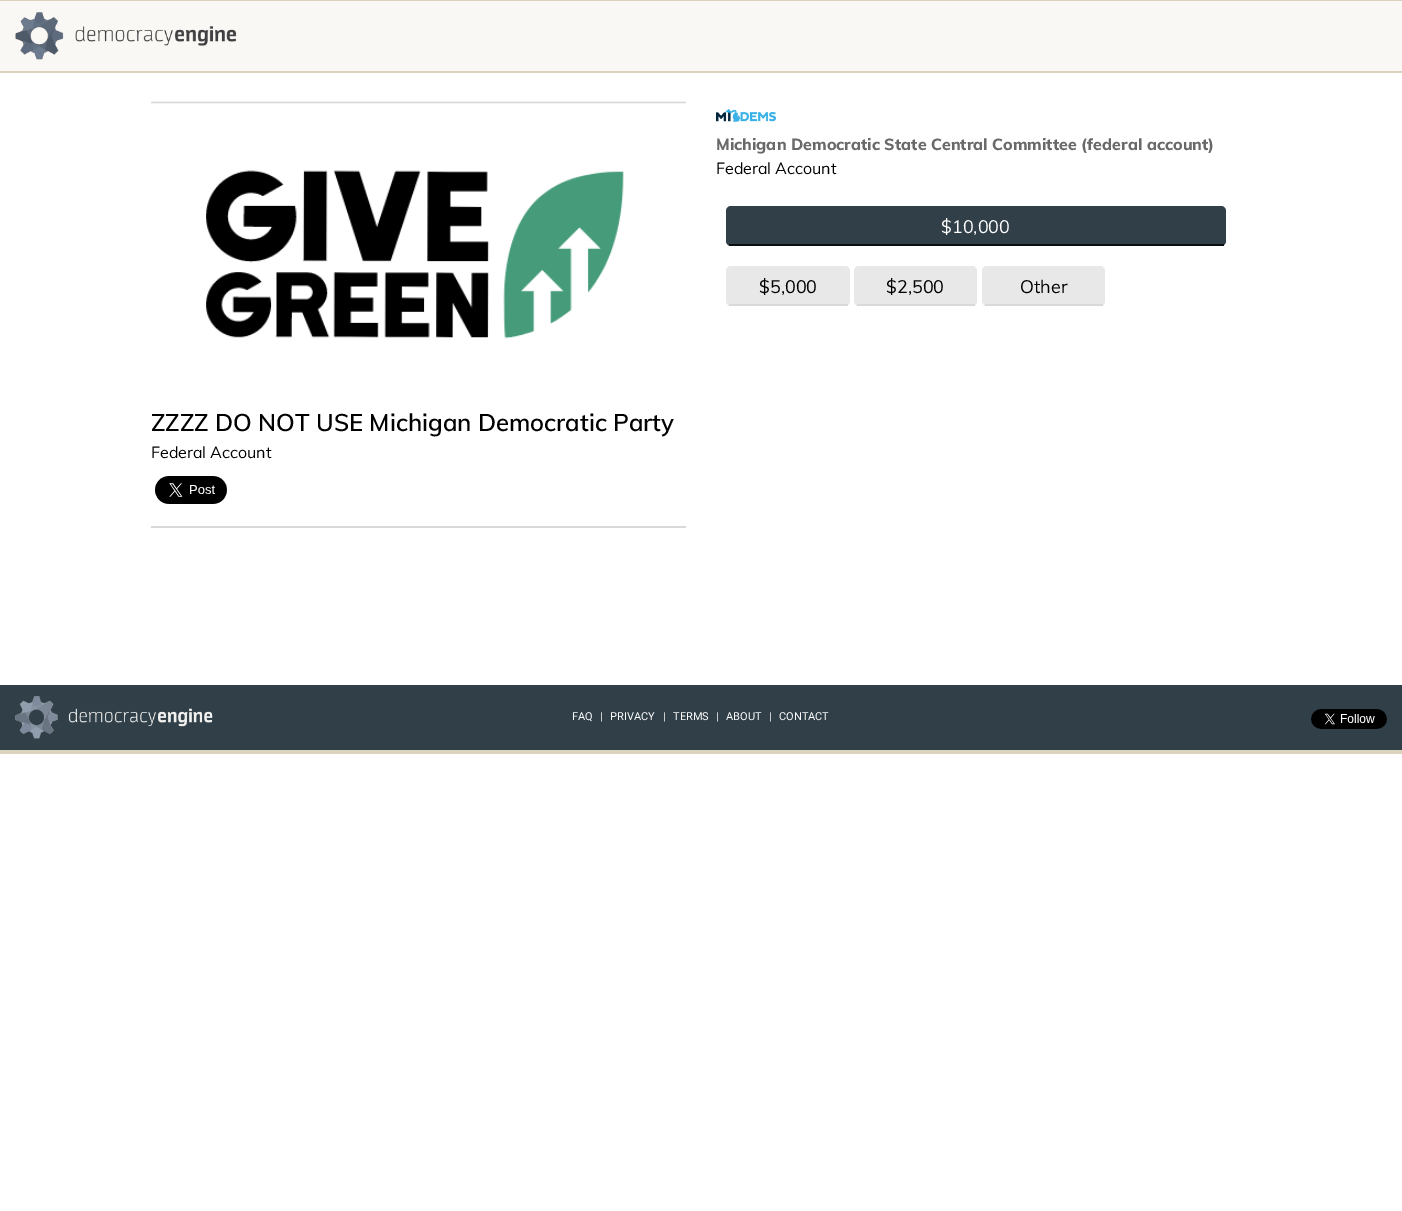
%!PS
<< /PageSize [1402 1211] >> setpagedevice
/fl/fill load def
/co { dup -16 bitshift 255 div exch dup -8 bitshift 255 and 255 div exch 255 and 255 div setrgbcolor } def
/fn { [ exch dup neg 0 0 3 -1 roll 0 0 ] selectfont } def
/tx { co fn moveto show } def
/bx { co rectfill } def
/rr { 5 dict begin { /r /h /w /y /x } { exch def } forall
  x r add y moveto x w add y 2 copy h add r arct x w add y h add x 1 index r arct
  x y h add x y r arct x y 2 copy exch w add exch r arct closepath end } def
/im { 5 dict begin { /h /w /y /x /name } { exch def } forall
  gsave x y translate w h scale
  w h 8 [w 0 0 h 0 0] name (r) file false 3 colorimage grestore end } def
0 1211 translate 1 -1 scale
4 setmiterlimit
0 0 1402 1211 16#FFFFFF bx
0 1 1402 70 16#FAF8F5 bx
0 0 1402 1 16#DBD3BD bx
0 71 1402 2 16#DBD3BD bx
(media/1.raw) 15 12 222 48 im
(media/2.raw) 716 109 60 13 im
16#303F48 co
726 206 500 40 5 rr fl
729 244 495 2 16#0C1012 bx
16#E8E8E8 co
726 266 124 40 5 rr fl
729 304 119 2 16#D9D9D9 bx
16#E8E8E8 co
854 266 123 40 5 rr fl
857 304 118 2 16#D9D9D9 bx
16#E8E8E8 co
982 266 123 40 5 rr fl
985 304 118 2 16#D9D9D9 bx
(media/3.raw) 151 101 535 238 im
(media/4.raw) 155 476 72 28 im
151 526 535 2 16#D9D9D9 bx
0 685 1402 65 16#303F48 bx
0 750 1402 4 16#DBD3BD bx
(media/5.raw) 15 696 198 43 im
(media/6.raw) 1311 709 76 20 im
(Michigan Democratic State Central Committee \(federal account\)) 716 150 /Muli-ExtraBold 16 16#696969 tx
(Federal Account) 716 174 /Muli-Regular 16 16#000000 tx
($10,000) 941 233 /Muli-Regular 18 16#FFFFFF tx
($5,000) 759 293 /Muli-Regular 18 16#000000 tx
($2,500) 886 293 /Muli-Regular 18 16#000000 tx
(Other) 1020 293 /Muli-Regular 18 16#000000 tx
(ZZZZ DO NOT USE Michigan Democratic Party) 151 431 /Muli-SemiBold 24 16#000000 tx
(Federal Account) 151 458 /Muli-Regular 16 16#000000 tx
(FAQ) 572 720 /Roboto-Regular 11 16#FFFFFF tx
(|) 600 720 /Roboto-Regular 11 16#FFFFFF tx
(PRIVACY) 610 720 /Roboto-Regular 11 16#FFFFFF tx
(|) 663 720 /Roboto-Regular 11 16#FFFFFF tx
(TERMS) 673 720 /Roboto-Regular 11 16#FFFFFF tx
(|) 716 720 /Roboto-Regular 11 16#FFFFFF tx
(ABOUT) 726 720 /Roboto-Regular 11 16#FFFFFF tx
(|) 769 720 /Roboto-Regular 11 16#FFFFFF tx
(CONTACT) 779 720 /Roboto-Regular 11 16#FFFFFF tx
showpage
